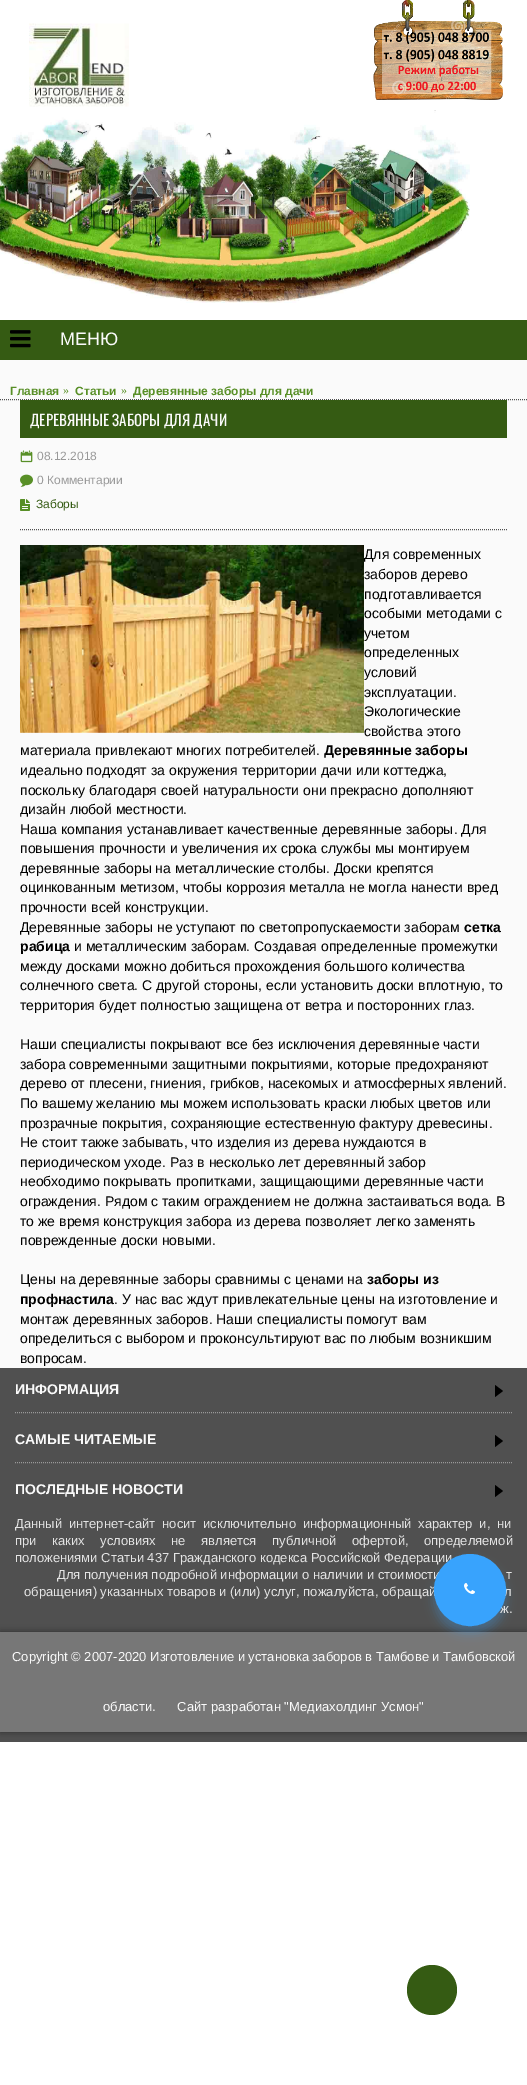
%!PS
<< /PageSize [527 2085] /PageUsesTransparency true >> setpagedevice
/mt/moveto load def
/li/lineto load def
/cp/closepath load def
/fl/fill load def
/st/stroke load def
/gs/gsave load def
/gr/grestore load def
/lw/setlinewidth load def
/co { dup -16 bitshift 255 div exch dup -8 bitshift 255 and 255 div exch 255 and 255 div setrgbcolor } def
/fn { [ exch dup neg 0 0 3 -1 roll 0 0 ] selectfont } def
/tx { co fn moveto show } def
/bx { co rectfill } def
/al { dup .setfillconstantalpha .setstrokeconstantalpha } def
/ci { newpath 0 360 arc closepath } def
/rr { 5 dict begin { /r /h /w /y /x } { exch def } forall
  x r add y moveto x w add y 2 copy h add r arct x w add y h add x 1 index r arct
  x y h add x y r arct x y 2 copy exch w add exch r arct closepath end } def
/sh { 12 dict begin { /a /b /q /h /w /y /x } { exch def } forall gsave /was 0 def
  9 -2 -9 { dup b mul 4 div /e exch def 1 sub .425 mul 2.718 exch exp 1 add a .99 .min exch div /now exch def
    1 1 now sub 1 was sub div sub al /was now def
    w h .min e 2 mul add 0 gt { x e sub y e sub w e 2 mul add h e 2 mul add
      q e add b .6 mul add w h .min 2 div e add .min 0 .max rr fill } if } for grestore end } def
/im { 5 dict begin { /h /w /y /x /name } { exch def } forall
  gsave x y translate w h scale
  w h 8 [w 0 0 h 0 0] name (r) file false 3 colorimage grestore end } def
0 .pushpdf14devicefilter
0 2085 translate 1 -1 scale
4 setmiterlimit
0 0 527 2085 16#FFFFFF bx
(media/1.raw) 29 23 100 84 im
(media/2.raw) 373 0 130 100 im
(media/3.raw) 0 110 470 193 im
0 320 527 40 16#355B13 bx
(media/4.raw) 10 330 21 18 im
0 360 527 1008 16#FAFAFA bx
16#505050 co
[1 1] 0 setdash
0 399.5 mt 527 399.5 li st
20 400 487 38 16#355B13 bx
16#505050 co
20 529.5 mt 507 529.5 li st
(media/5.raw) 20 450 13 13 im
(media/6.raw) 20 474 13 13 im
(media/7.raw) 20 499 10 12 im
(media/8.raw) 20 545 344 188 im
0 1368 527 374 16#505050 bx
16#999999 co
15 1412.5 mt 512 1412.5 li st
16#000000 co
495 1385 mt 495 1397 li 503 1391 li cp fl
16#999999 co
15 1462.5 mt 512 1462.5 li st
16#000000 co
495 1435 mt 495 1447 li 503 1441 li cp fl
495 1485 mt 495 1497 li 503 1491 li cp fl
0 1632 527 100 0 3.5 .4 sh
0 1632 527 100 16#777777 bx
16#38A3FD co
434 1562 72 72 36 5 .3 sh
16#355B13 co
432 1990 25 ci fl
(МЕНЮ) 60 345 /LiberationSans-Regular 18 16#FAFAFA tx
(Главная) 10 395 /LiberationSans-Bold 12 16#588F27 tx
(») 63 394 /LiberationSerif-Regular 12 16#588F27 tx
(Статьи) 75 395 /LiberationSans-Bold 12 16#588F27 tx
(») 121 394 /LiberationSerif-Regular 12 16#588F27 tx
(Деревянные заборы для дачи) 133 395 /LiberationSans-Bold 12 16#588F27 tx
(ДЕРЕВЯННЫЕ ЗАБОРЫ ДЛЯ ДАЧИ) 30 426 /Oswald-Regular 15 16#FAFAFA tx
(08.12.2018) 37 460 /LiberationSans-Regular 12 16#999999 tx
(0 Комментарии) 37 484 /LiberationSans-Regular 12 16#999999 tx
(Заборы) 36 508 /LiberationSans-Regular 12 16#355B13 tx
(Для современных) 364 559 /LiberationSans-Regular 14 16#000000 tx
(заборов дерево) 364 579 /LiberationSans-Regular 14 16#000000 tx
(подготавливается) 364 599 /LiberationSans-Regular 14 16#000000 tx
(особыми методами с) 364 618 /LiberationSans-Regular 14 16#000000 tx
(учетом) 364 638 /LiberationSans-Regular 14 16#000000 tx
(определенных) 364 657 /LiberationSans-Regular 14 16#000000 tx
(условий) 364 677 /LiberationSans-Regular 14 16#000000 tx
(эксплуатации.) 364 697 /LiberationSans-Regular 14 16#000000 tx
(Экологические) 364 716 /LiberationSans-Regular 14 16#000000 tx
(свойства этого) 364 736 /LiberationSans-Regular 14 16#000000 tx
(материала привлекают многих потребителей.) 20 755 /LiberationSans-Regular 14 16#000000 tx
(Деревянные заборы) 324 755 /LiberationSans-Bold 14 16#000000 tx
(идеально подходят за окружения территории дачи или коттеджа,) 20 775 /LiberationSans-Regular 14 16#000000 tx
(поскольку благодаря своей натуральности они прекрасно дополняют) 20 795 /LiberationSans-Regular 14 16#000000 tx
(дизайн любой местности.) 20 814 /LiberationSans-Regular 14 16#000000 tx
(Наша компания устанавливает качественные деревянные заборы. Для) 20 834 /LiberationSans-Regular 14 16#000000 tx
(повышения прочности и увеличения их срока службы мы монтируем) 20 853 /LiberationSans-Regular 14 16#000000 tx
(деревянные заборы на металлические столбы. Доски крепятся) 20 873 /LiberationSans-Regular 14 16#000000 tx
(оцинкованным метизом, чтобы коррозия металла не могла нанести вред) 20 892 /LiberationSans-Regular 14 16#000000 tx
(прочности всей конструкции.) 20 912 /LiberationSans-Regular 14 16#000000 tx
(Деревянные заборы не уступают по светопропускаемости заборам) 20 932 /LiberationSans-Regular 14 16#000000 tx
(сетка) 464 932 /LiberationSans-Bold 14 16#000000 tx
(рабица) 20 951 /LiberationSans-Bold 14 16#000000 tx
(и металлическим заборам. Создавая определенные промежутки) 74 951 /LiberationSans-Regular 14 16#000000 tx
(между досками можно добиться прохождения большого количества) 20 971 /LiberationSans-Regular 14 16#000000 tx
(солнечного света. С другой стороны, если установить доски вплотную, то) 20 990 /LiberationSans-Regular 14 16#000000 tx
(территория будет полностью защищена от ветра и посторонних глаз.) 20 1010 /LiberationSans-Regular 14 16#000000 tx
(Наши специалисты покрывают все без исключения деревянные части) 20 1049 /LiberationSans-Regular 14 16#000000 tx
(забора современными защитными покрытиями, которые предохраняют) 20 1069 /LiberationSans-Regular 14 16#000000 tx
(дерево от плесени, гниения, грибков, насекомых и атмосферных явлений.) 20 1088 /LiberationSans-Regular 14 16#000000 tx
(По вашему желанию мы можем использовать краски любых цветов или) 20 1108 /LiberationSans-Regular 14 16#000000 tx
(прозрачные покрытия, сохраняющие естественную фактуру древесины.) 20 1128 /LiberationSans-Regular 14 16#000000 tx
(Не стоит также забывать, что изделия из дерева нуждаются в) 20 1147 /LiberationSans-Regular 14 16#000000 tx
(периодическом уходе. Раз в несколько лет деревянный забор) 20 1167 /LiberationSans-Regular 14 16#000000 tx
(необходимо покрывать пропитками, защищающими деревянные части) 20 1186 /LiberationSans-Regular 14 16#000000 tx
(ограждения. Рядом с таким ограждением не должна застаиваться вода. В) 20 1206 /LiberationSans-Regular 14 16#000000 tx
(то же время конструкция забора из дерева позволяет легко заменять) 20 1226 /LiberationSans-Regular 14 16#000000 tx
(поврежденные доски новыми.) 20 1245 /LiberationSans-Regular 14 16#000000 tx
(Цены на деревянные заборы сравнимы с ценами на) 20 1284 /LiberationSans-Regular 14 16#000000 tx
(заборы из) 367 1284 /LiberationSans-Bold 14 16#000000 tx
(профнастила) 20 1304 /LiberationSans-Bold 14 16#000000 tx
(. У нас вас ждут привлекательные цены на изготовление и) 114 1304 /LiberationSans-Regular 14 16#000000 tx
(монтаж деревянных заборов. Наши специалисты помогут вам) 20 1324 /LiberationSans-Regular 14 16#000000 tx
(определиться с выбором и проконсультируют вас по любым возникшим) 20 1343 /LiberationSans-Regular 14 16#000000 tx
(вопросам.) 20 1363 /LiberationSans-Regular 14 16#000000 tx
(ИНФОРМАЦИЯ) 15 1394 /LiberationSans-Bold 14 16#FAFAFA tx
(САМЫЕ ЧИТАЕМЫЕ) 15 1444 /LiberationSans-Bold 14 16#FAFAFA tx
(ПОСЛЕДНЫЕ НОВОСТИ) 15 1494 /LiberationSans-Bold 14 16#FAFAFA tx
/LiberationSans-Regular 13 fn
16#E4E4E4 co
15 1528 mt 3.25 0 32 (Данный интернет-сайт носит исключительно информационный характер и, ни) widthshow
15 1545 mt 12 0 32 (при каких условиях не является публичной офертой, определяемой) widthshow
(положениями Статьи 437 Гражданского кодекса Российской Федерации) 15 1562 /LiberationSans-Regular 13 16#E4E4E4 tx
(Для получения подробной информации о наличии и стоимости) 57 1579 /LiberationSans-Regular 13 16#E4E4E4 tx
(т) 506 1579 /LiberationSans-Regular 13 16#E4E4E4 tx
(обращения\) указанных товаров и \(или\) услуг, пожалуйста, обращай) 24 1596 /LiberationSans-Regular 13 16#E4E4E4 tx
(л) 504 1596 /LiberationSans-Regular 13 16#E4E4E4 tx
(ж.) 500 1613 /LiberationSans-Regular 13 16#E4E4E4 tx
(Copyright © 2007-2020 Изготовление и установка заборов в Тамбове и Тамбовской) 12 1661 /LiberationSans-Regular 13 16#FAFAFA tx
(области.      Сайт разработан "Медиахолдинг Усмон") 103 1711 /LiberationSans-Regular 13 16#FAFAFA tx
16#38A3FD co
470 1590 35 ci gs fl gr
2 lw
[] 0 setdash
st
(media/9.raw) 464 1583 11 11 im
.poppdf14devicefilter showpage
